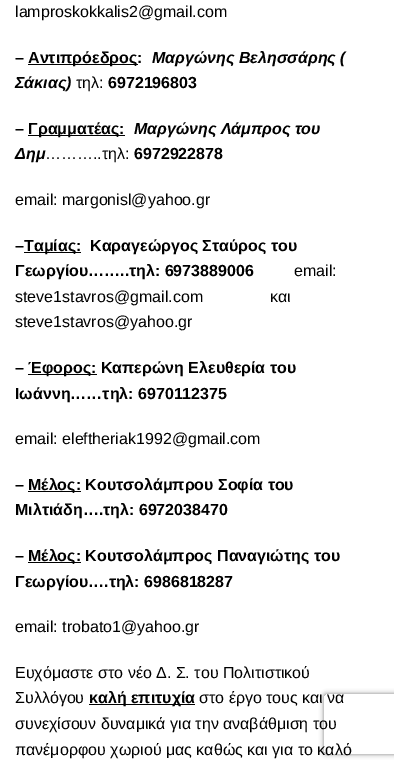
%!PS
<< /PageSize [394 768] /PageUsesTransparency true >> setpagedevice
/mt/moveto load def
/li/lineto load def
/ct/curveto load def
/cp/closepath load def
/gs/gsave load def
/gr/grestore load def
/co { dup -16 bitshift 255 div exch dup -8 bitshift 255 and 255 div exch 255 and 255 div setrgbcolor } def
/fn { [ exch dup neg 0 0 3 -1 roll 0 0 ] selectfont } def
/tx { co fn moveto show } def
/bx { co rectfill } def
/al { dup .setfillconstantalpha .setstrokeconstantalpha } def
/rr { 5 dict begin { /r /h /w /y /x } { exch def } forall
  x r add y moveto x w add y 2 copy h add r arct x w add y h add x 1 index r arct
  x y h add x y r arct x y 2 copy exch w add exch r arct closepath end } def
/sh { 12 dict begin { /a /b /q /h /w /y /x } { exch def } forall gsave /was 0 def
  9 -2 -9 { dup b mul 4 div /e exch def 1 sub .425 mul 2.718 exch exp 1 add a .99 .min exch div /now exch def
    1 1 now sub 1 was sub div sub al /was now def
    w h .min e 2 mul add 0 gt { x e sub y e sub w e 2 mul add h e 2 mul add
      q e add b .6 mul add w h .min 2 div e add .min 0 .max rr fill } if } for grestore end } def
0 .pushpdf14devicefilter
0 768 translate 1 -1 scale
4 setmiterlimit
0 0 394 768 16#FFFFFF bx
28 64 110 1 16#000000 bx
28 135 97 1 16#000000 bx
24 252 57 1 16#000000 bx
28 374 69 1 16#000000 bx
28 491 53 1 16#000000 bx
28 562 53 1 16#000000 bx
89 704 106 1 16#000000 bx
gs
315 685 mt 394 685 li 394 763 li 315 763 li cp 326 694 mt 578 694 li 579 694 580 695 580 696 ct 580 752 li 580 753 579 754 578 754 ct 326 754 li 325 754 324 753 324 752 ct 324 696 li 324 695 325 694 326 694 ct cp eoclip newpath
16#808080 co
324 694 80 60 2 2.5 1 sh
gr
(lamproskokkalis2@gmail.com) 15 17 /LiberationSans-Regular 16 16#000000 tx
(–) 15 63 /LiberationSans-Bold 16 16#000000 tx
(Αντιπρόεδρος:) 28 63 /LiberationSans-Bold 16 16#000000 tx
(Μαργώνης Βελησσάρης \() 152 63 /LiberationSans-BoldItalic 16 16#000000 tx
(Σάκιας\)) 15 88 /LiberationSans-BoldItalic 16 16#000000 tx
(τηλ:) 76 88 /LiberationSans-Regular 16 16#000000 tx
(6972196803) 108 88 /LiberationSans-Bold 16 16#000000 tx
(–) 15 134 /LiberationSans-Bold 16 16#000000 tx
(Γραμματέας:) 28 134 /LiberationSans-Bold 16 16#000000 tx
(Μαργώνης Λάμπρος του) 134 134 /LiberationSans-BoldItalic 16 16#000000 tx
(Δημ) 15 159 /LiberationSans-BoldItalic 16 16#000000 tx
(………..τηλ:) 45 159 /LiberationSans-Regular 16 16#000000 tx
(6972922878) 134 159 /LiberationSans-Bold 16 16#000000 tx
(email: margonisl@yahoo.gr) 15 205 /LiberationSans-Regular 16 16#000000 tx
(–) 15 251 /LiberationSans-Bold 16 16#000000 tx
(Ταμίας:) 24 251 /LiberationSans-Bold 16 16#000000 tx
(Καραγεώργος Σταύρος του) 90 251 /LiberationSans-Bold 16 16#000000 tx
(Γεωργίου……..τηλ: 6973889006) 15 276 /LiberationSans-Bold 16 16#000000 tx
(email:) 294 276 /LiberationSans-Regular 16 16#000000 tx
(steve1stavros@gmail.com               και) 15 302 /LiberationSans-Regular 16 16#000000 tx
(steve1stavros@yahoo.gr) 15 327 /LiberationSans-Regular 16 16#000000 tx
(–) 15 373 /LiberationSans-Bold 16 16#000000 tx
(Έφορος: Καπερώνη Ελευθερία του) 28 373 /LiberationSans-Bold 16 16#000000 tx
(Ιωάννη……τηλ: 6970112375) 15 399 /LiberationSans-Bold 16 16#000000 tx
(email: eleftheriak1992@gmail.com) 15 444 /LiberationSans-Regular 16 16#000000 tx
(–) 15 490 /LiberationSans-Bold 16 16#000000 tx
(Μέλος: Κουτσολάμπρου Σοφία του) 28 490 /LiberationSans-Bold 16 16#000000 tx
(Μιλτιάδη….τηλ: 6972038470) 15 515 /LiberationSans-Bold 16 16#000000 tx
(–) 15 561 /LiberationSans-Bold 16 16#000000 tx
(Μέλος: Κουτσολάμπρος Παναγιώτης του) 28 561 /LiberationSans-Bold 16 16#000000 tx
(Γεωργίου….τηλ: 6986818287) 15 587 /LiberationSans-Bold 16 16#000000 tx
(email: trobato1@yahoo.gr) 15 632 /LiberationSans-Regular 16 16#000000 tx
(Ευχόμαστε στο νέο Δ. Σ. του Πολιτιστικού) 15 678 /LiberationSans-Regular 16 16#000000 tx
(Συλλόγου) 15 703 /LiberationSans-Regular 16 16#000000 tx
(καλή επιτυχία) 89 703 /LiberationSans-Bold 16 16#000000 tx
(στο έργο τους και να) 199 703 /LiberationSans-Regular 16 16#000000 tx
(συνεχίσουν δυναμικά για την αναβάθμιση του) 15 729 /LiberationSans-Regular 16 16#000000 tx
(πανέμορφου χωριού μας καθώς και για το καλό) 15 755 /LiberationSans-Regular 16 16#000000 tx
.poppdf14devicefilter showpage
